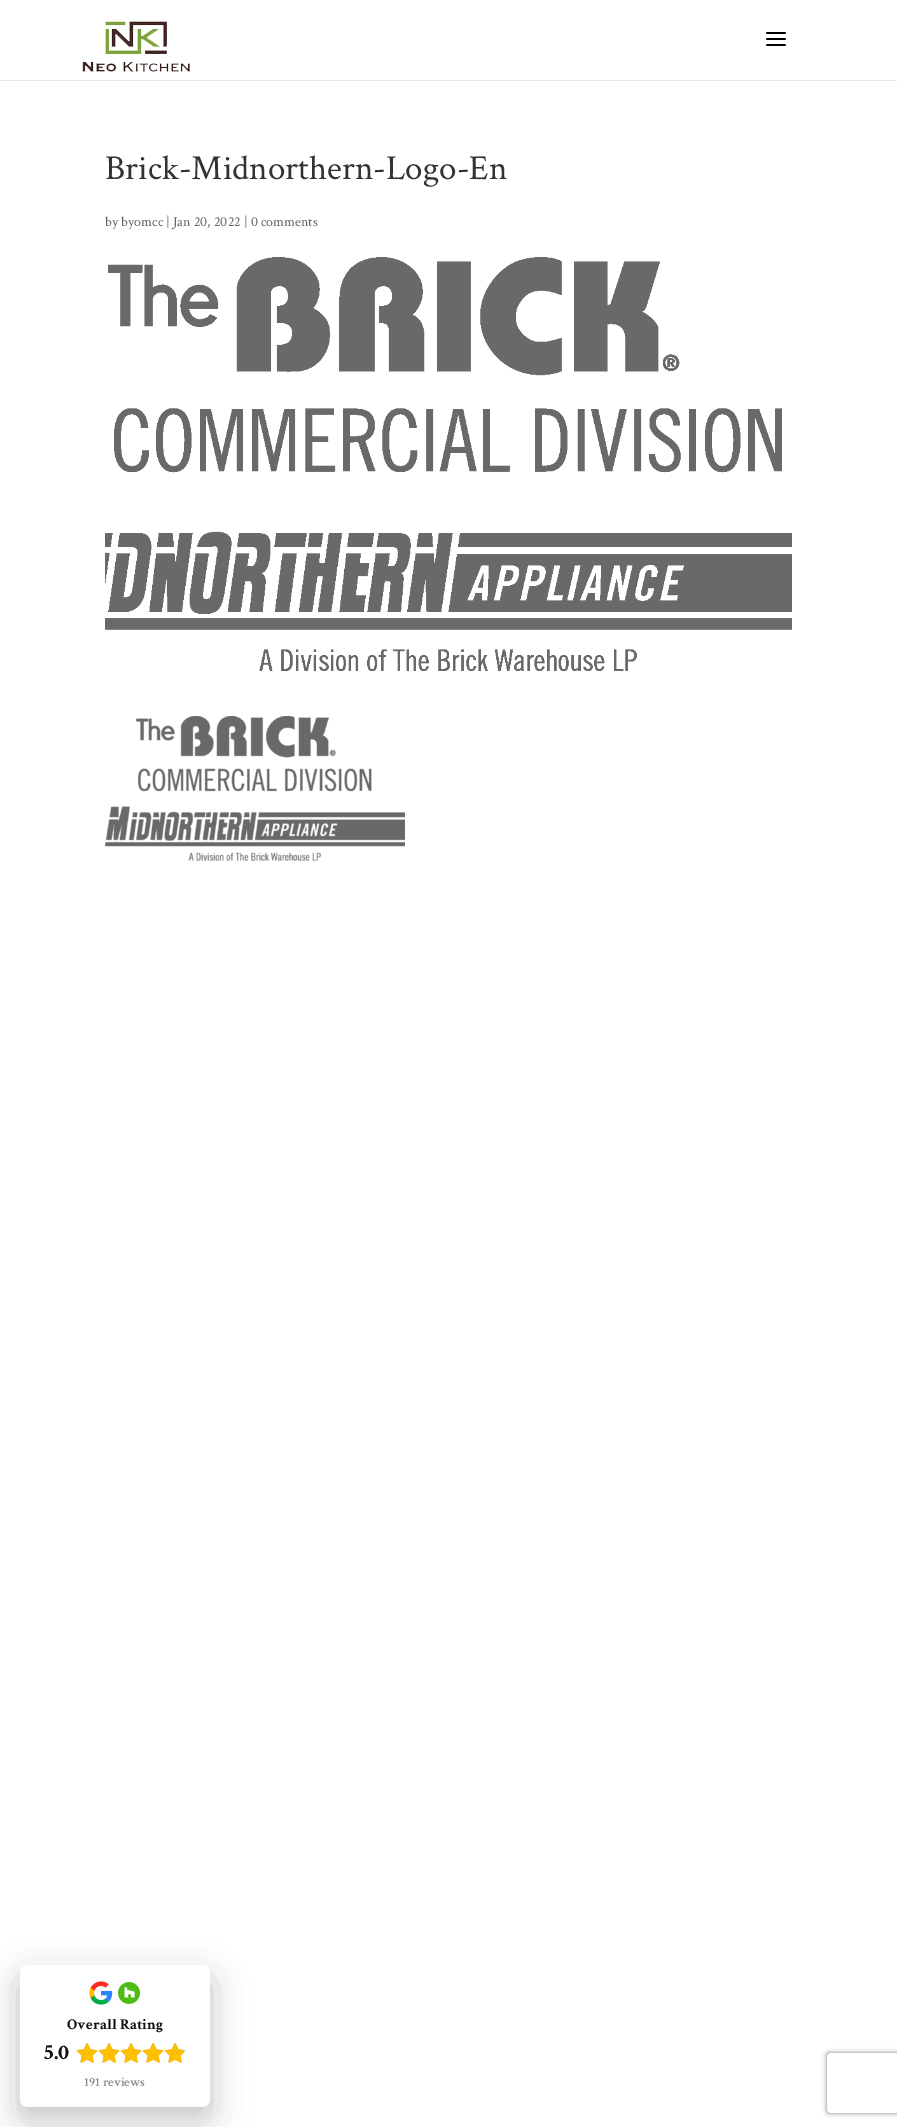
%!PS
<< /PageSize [897 2127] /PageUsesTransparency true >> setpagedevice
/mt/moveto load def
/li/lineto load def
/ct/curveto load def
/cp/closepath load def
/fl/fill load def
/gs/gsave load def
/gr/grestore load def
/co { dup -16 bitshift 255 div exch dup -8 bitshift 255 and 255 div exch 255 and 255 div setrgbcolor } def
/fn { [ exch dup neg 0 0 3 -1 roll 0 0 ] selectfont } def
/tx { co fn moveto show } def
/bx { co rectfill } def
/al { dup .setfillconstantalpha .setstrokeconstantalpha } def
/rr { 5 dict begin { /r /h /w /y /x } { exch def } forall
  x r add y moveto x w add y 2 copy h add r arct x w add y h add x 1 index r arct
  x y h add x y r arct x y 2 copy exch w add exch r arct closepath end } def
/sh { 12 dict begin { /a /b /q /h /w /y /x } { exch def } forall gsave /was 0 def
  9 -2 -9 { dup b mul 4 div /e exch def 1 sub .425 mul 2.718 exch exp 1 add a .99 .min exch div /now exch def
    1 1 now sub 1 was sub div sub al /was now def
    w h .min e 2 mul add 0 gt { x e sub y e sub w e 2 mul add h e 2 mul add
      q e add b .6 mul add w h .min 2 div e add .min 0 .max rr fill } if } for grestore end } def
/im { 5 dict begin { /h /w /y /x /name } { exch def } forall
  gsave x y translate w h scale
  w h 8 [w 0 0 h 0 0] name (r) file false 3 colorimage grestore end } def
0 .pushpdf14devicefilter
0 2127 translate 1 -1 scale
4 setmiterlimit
0 0 897 2127 16#FFFFFF bx
0 80 897 1 16#E6E6E6 bx
(media/1.raw) 766 32 20 14 im
(media/2.raw) 82 21 108 51 im
(media/3.raw) 105 257 687 414 im
(media/4.raw) 105 716 300 145 im
16#000000 co
20 1975 190 142 8 15 .15 sh
20 1980 190 142 8 20 .1 sh
16#FFFFFF co
20 1965 190 142 8 rr fl
(media/5.raw) 89 1981 24 24 im
(media/6.raw) 118 1982 22 22 im
(media/8.raw) 77 2043 21 20 im
(media/7.raw) 76 2043 22 20 im
(media/8.raw) 99 2043 21 20 im
(media/7.raw) 98 2043 22 20 im
(media/8.raw) 121 2043 21 20 im
(media/7.raw) 120 2043 22 20 im
(media/8.raw) 143 2043 21 20 im
(media/7.raw) 142 2043 22 20 im
(media/8.raw) 165 2043 21 20 im
(media/9.raw) 164 2043 20 20 im
gs
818 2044 mt 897 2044 li 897 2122 li 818 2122 li cp 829 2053 mt 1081 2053 li 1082 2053 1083 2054 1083 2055 ct 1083 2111 li 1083 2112 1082 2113 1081 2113 ct 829 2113 li 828 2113 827 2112 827 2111 ct 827 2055 li 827 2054 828 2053 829 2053 ct cp eoclip newpath
16#808080 co
827 2053 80 60 2 2.5 1 sh
gr
(Brick-Midnorthern-Logo-En) 105 179 /CrimsonText-Regular 35 16#333333 tx
(by byomcc | Jan 20, 2022 | 0 comments) 105 226 /CrimsonText-Regular 14 16#666666 tx
(Overall Rating) 67 2029 /CrimsonText-Bold 15 16#111111 tx
(5.0) 44 2059 /CrimsonText-Bold 22 16#111111 tx
(191 reviews) 84 2086 /CrimsonText-SemiBold 13 16#888888 tx
.poppdf14devicefilter showpage
